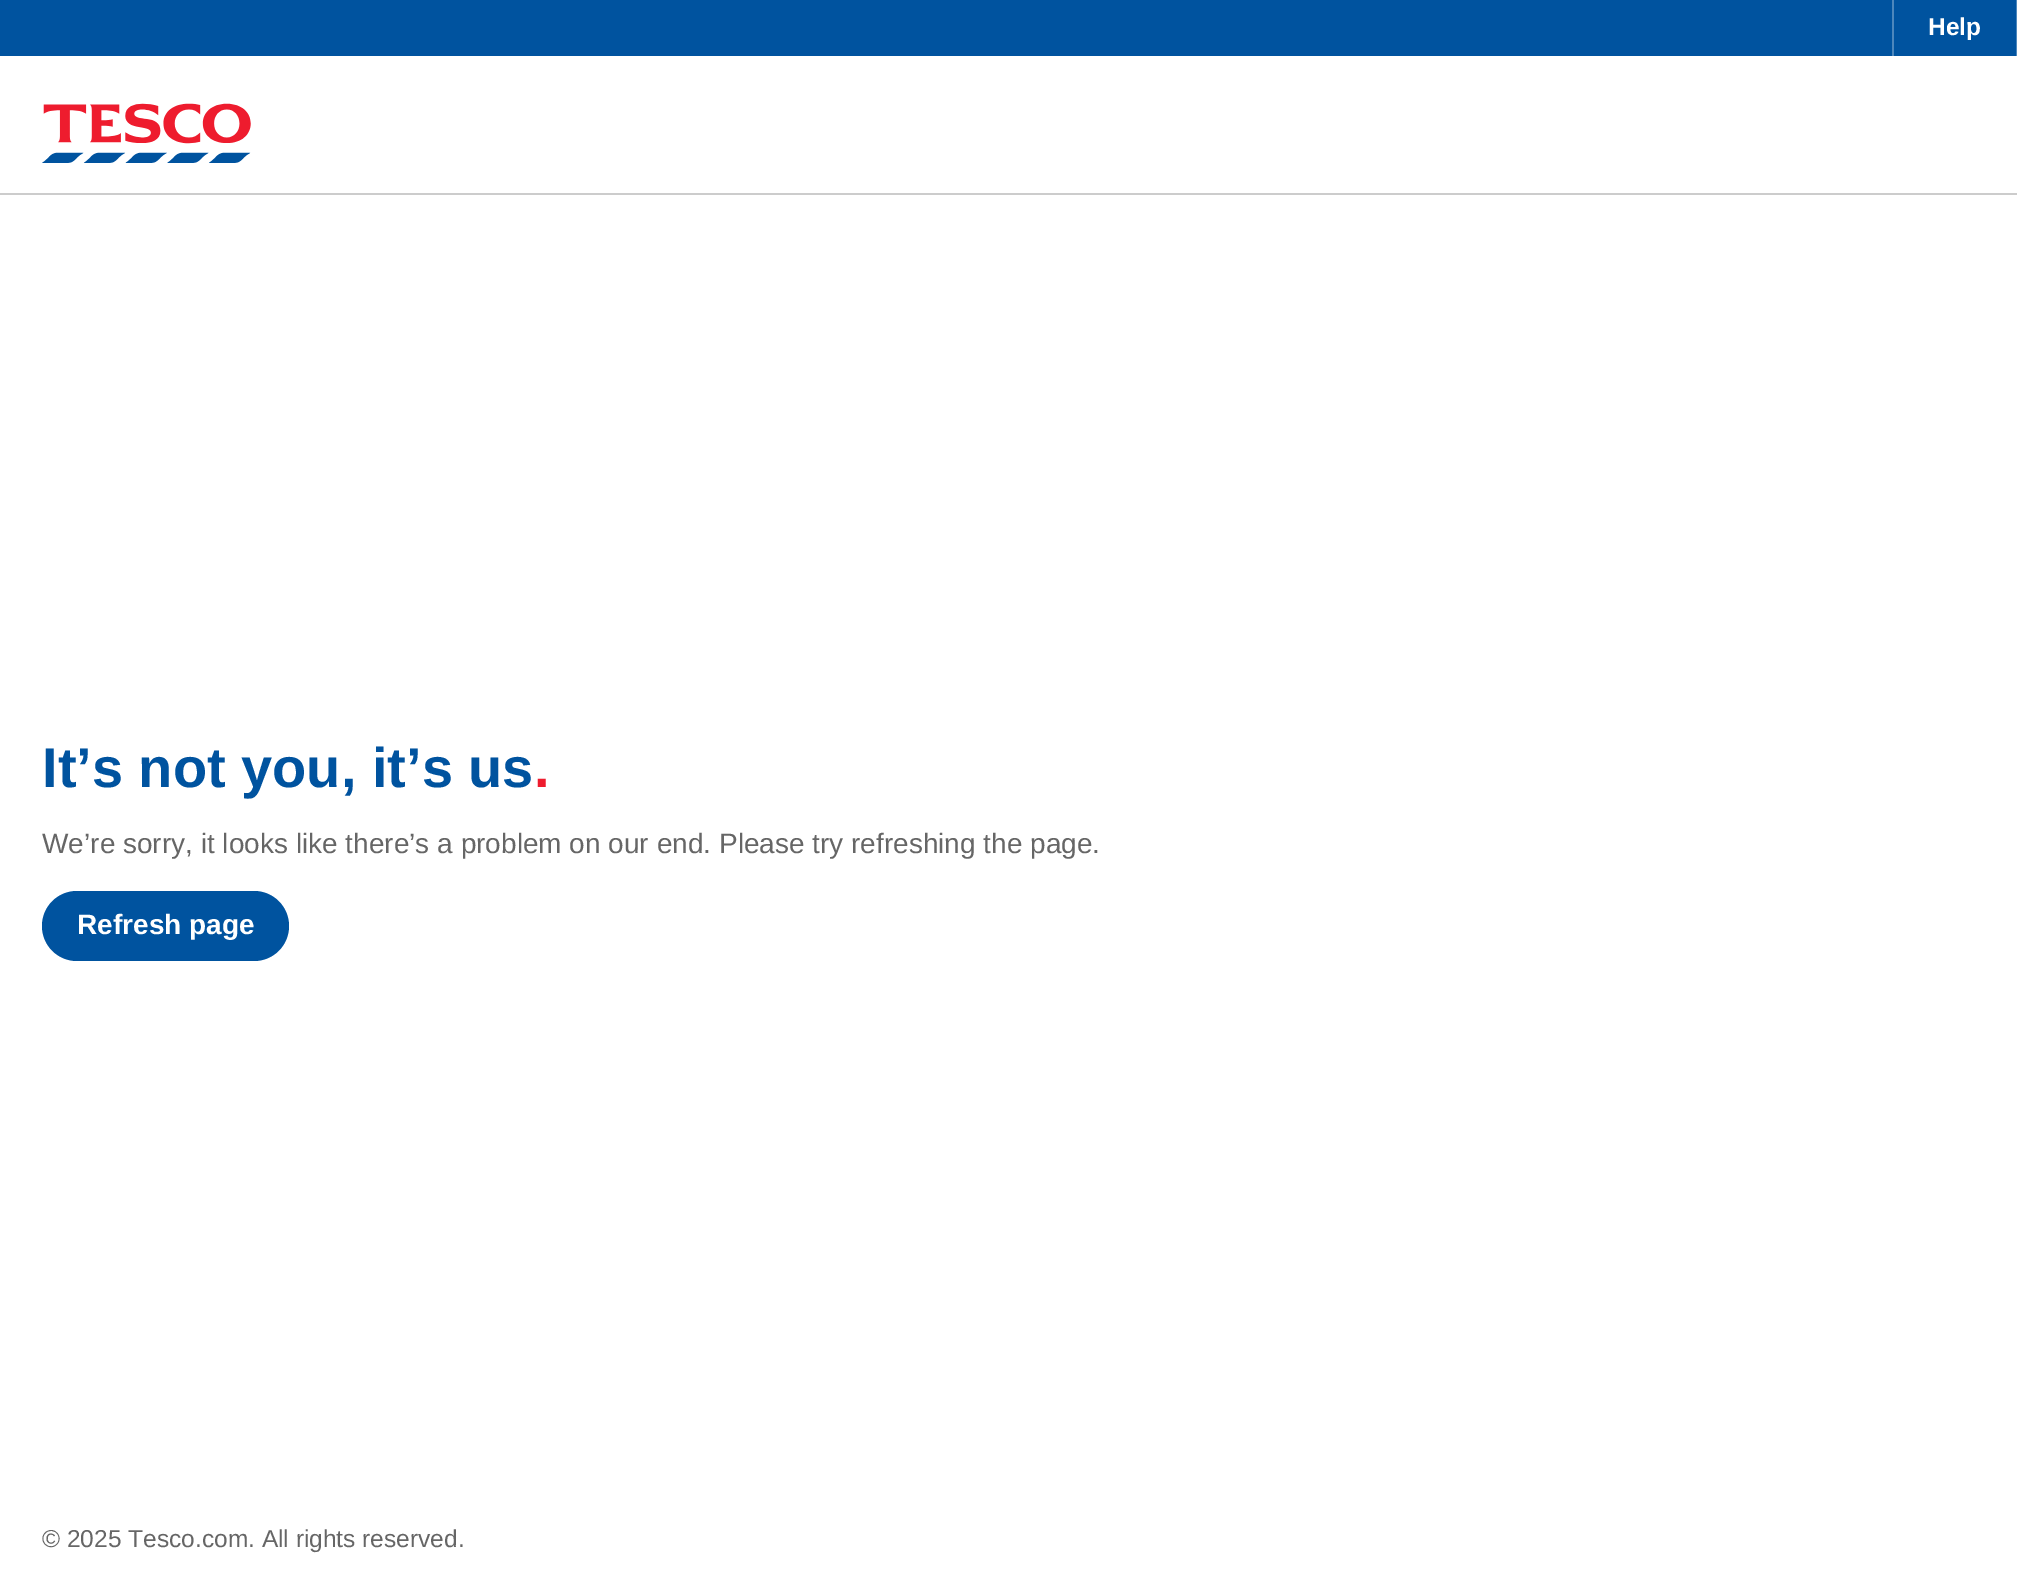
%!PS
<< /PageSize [2017 1575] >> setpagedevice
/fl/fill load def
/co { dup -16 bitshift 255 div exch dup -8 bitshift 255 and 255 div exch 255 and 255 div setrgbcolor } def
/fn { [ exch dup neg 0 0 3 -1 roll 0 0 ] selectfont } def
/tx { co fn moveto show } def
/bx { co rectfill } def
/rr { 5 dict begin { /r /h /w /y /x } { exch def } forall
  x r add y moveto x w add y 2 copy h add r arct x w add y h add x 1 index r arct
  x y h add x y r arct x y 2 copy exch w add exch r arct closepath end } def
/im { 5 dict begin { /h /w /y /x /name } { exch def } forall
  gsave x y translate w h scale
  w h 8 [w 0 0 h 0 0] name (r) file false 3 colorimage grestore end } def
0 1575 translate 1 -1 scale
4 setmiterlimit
0 0 2017 1575 16#FFFFFF bx
0 0 2016 56 16#00539F bx
2016 0 1 56 16#4D87BC bx
1892 0 2 56 16#4D87BC bx
(media/1.raw) 42 103 209 60 im
0 193 2017 2 16#CCCCCC bx
16#00539F co
42 891 247 70 35 rr fl
(Help) 1928 35 /LiberationSans-Bold 24.5 16#FFFFFF tx
(It’s not you, it’s us) 42 787 /LiberationSans-Bold 56 16#00539F tx
(.) 534 787 /LiberationSans-Bold 56 16#EE1C2E tx
(We’re sorry, it looks like there’s a problem on our end. Please try refreshing the page.) 42 853 /LiberationSans-Regular 28 16#666666 tx
(Refresh page) 77 934 /LiberationSans-Bold 28 16#FFFFFF tx
(© 2025 Tesco.com. All rights reserved.) 42 1547 /LiberationSans-Regular 24.5 16#666666 tx
showpage
